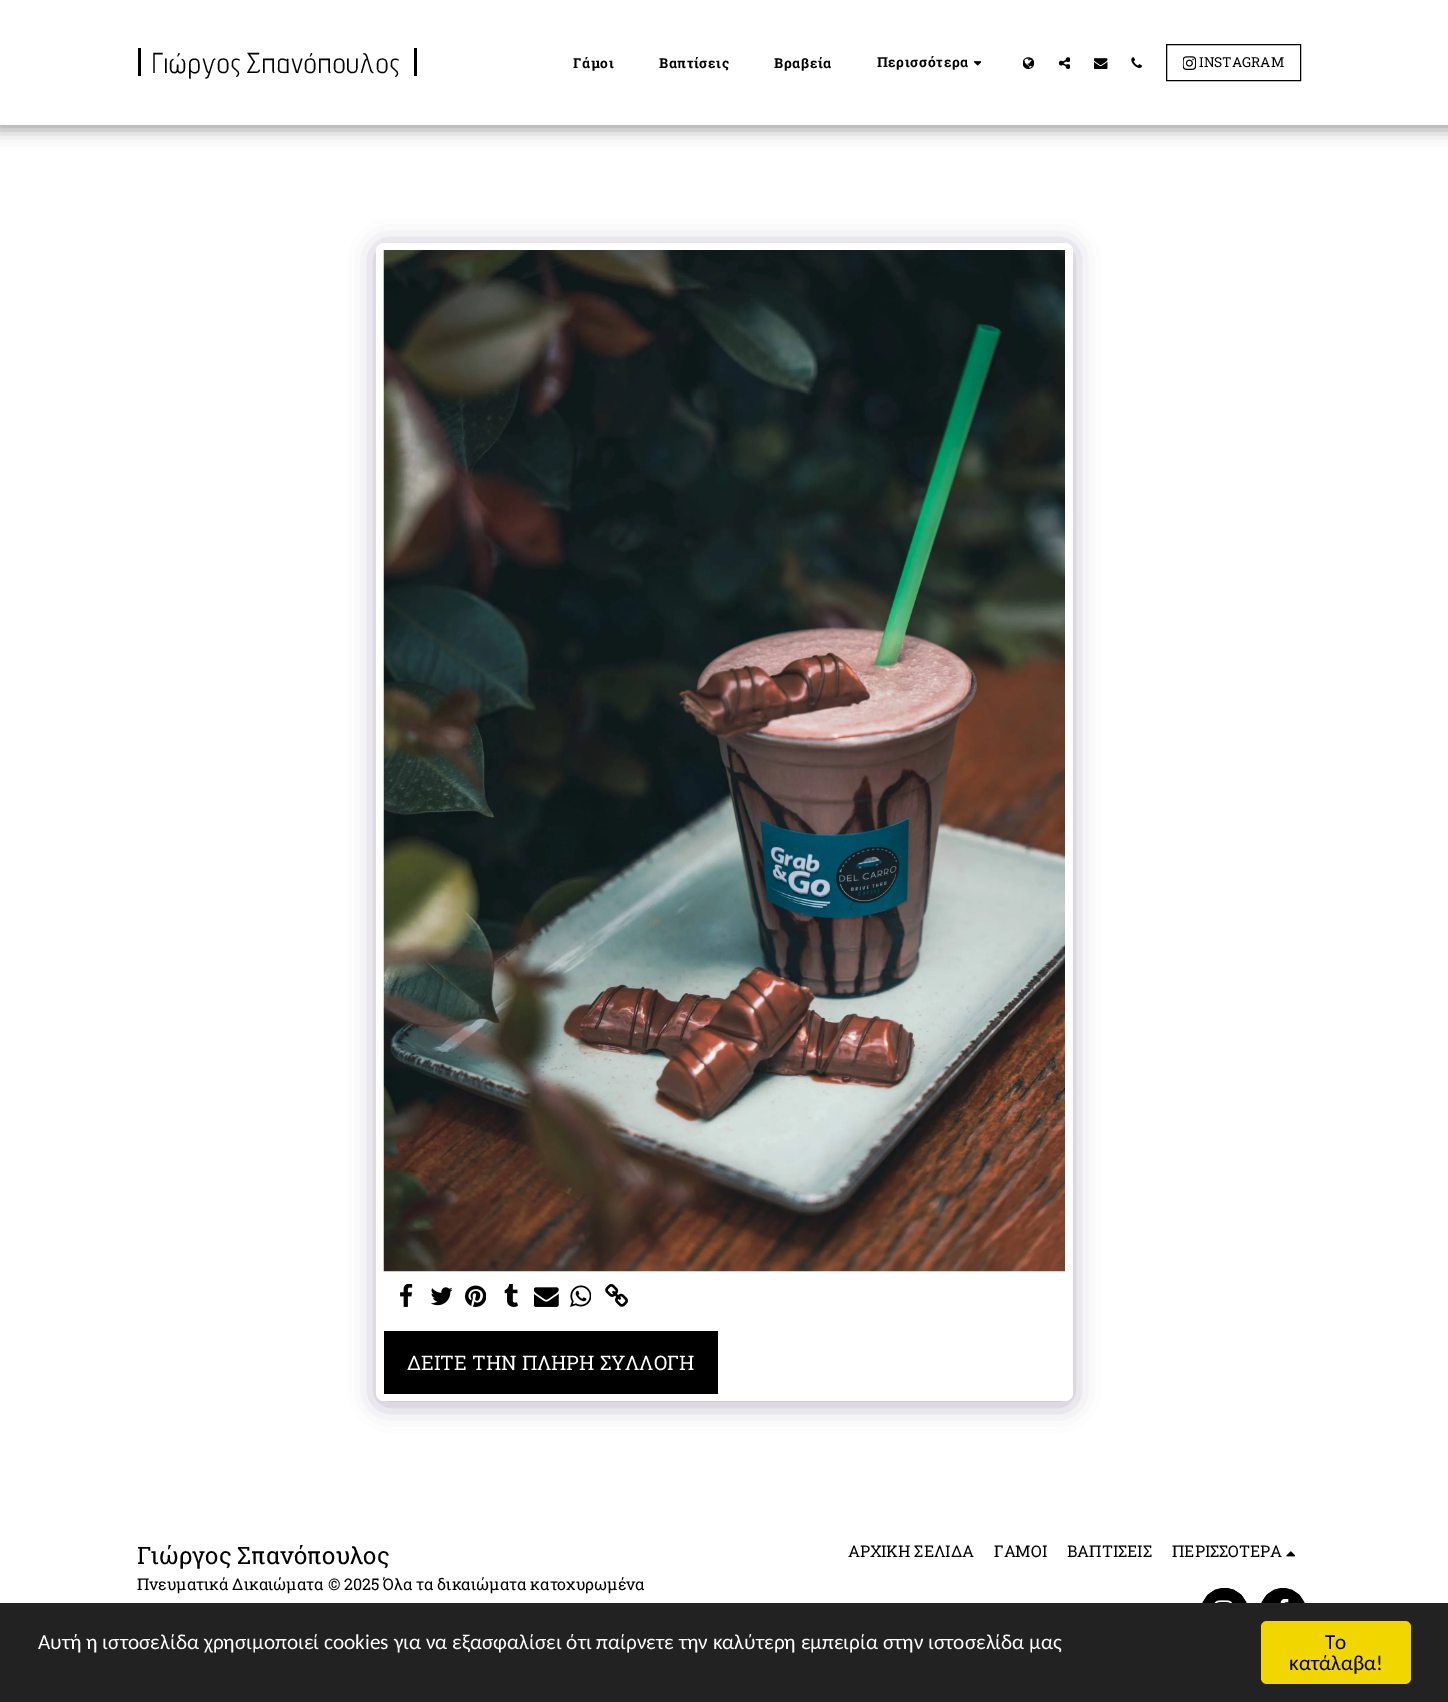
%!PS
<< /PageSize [1448 1702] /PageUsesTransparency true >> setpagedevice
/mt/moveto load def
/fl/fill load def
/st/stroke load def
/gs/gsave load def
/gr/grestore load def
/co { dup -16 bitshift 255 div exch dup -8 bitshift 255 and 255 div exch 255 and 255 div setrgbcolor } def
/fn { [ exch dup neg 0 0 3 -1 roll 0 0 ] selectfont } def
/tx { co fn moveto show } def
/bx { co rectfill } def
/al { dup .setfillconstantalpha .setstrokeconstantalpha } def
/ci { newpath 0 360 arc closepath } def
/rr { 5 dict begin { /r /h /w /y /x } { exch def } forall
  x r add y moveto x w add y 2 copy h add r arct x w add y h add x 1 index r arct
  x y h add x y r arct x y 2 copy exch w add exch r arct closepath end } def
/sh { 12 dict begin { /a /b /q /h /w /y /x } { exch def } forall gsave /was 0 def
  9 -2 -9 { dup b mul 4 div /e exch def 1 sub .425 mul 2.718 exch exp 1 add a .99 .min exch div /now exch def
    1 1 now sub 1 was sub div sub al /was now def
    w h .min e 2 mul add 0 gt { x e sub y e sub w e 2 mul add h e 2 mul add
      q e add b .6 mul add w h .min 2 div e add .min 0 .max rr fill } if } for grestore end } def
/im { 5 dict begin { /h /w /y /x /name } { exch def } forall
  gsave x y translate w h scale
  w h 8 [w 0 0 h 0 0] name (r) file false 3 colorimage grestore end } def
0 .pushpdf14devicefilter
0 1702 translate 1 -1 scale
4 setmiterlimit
0 0 1448 1702 16#FFFFFF bx
16#000000 co
-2 0 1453 130 0 7.5 .35 sh
0 0 1448 125 16#FFFFFF bx
414 48 3 28 16#000000 bx
138 48 3 28 16#000000 bx
(media/1.raw) 974 61 7 5 im
(media/2.raw) 1023 57 11 12 im
(media/3.raw) 1059 57 11 12 im
(media/4.raw) 1094 58 14 11 im
(media/5.raw) 1131 57 11 11 im
1166.5 44.5 134 36 rectstroke
(media/6.raw) 1183 56 13 14 im
16#4D3F7A co
376 246 697 1159 8 12.5 .4 sh
16#FFFFFF co
376 243 697 1158 8 rr fl
(media/7.raw) 383 250 682 1022 im
(media/8.raw) 400 1284 13 23 im
(media/9.raw) 430 1287 23 19 im
(media/10.raw) 465 1285 21 22 im
(media/11.raw) 504 1284 14 23 im
(media/12.raw) 534 1287 25 20 im
(media/13.raw) 570 1285 21 22 im
(media/14.raw) 605 1284 23 23 im
384 1331 334 63 16#000000 bx
(media/15.raw) 1286 1551 9 6 im
1201.5 1588.5 46 45 22.5 rr gs fl gr
st
(media/16.raw) 1214 1600 19 3 im
1283 1611 22.5 ci gs fl gr
st
(media/17.raw) 1280 1599 9 4 im
0 1603 1448 99 16#222222 bx
16#F1D600 co
1261 1621 150 63 6 rr fl
/AdventPro-Regular 28.75 fn
16#000000 co
152 73 mt 1.25 0 (Γιώργος) ashow
246 73 mt 1.25 0 (Σπανόπουλος) ashow
/RobotoSlab-Bold 13.75 fn
573 68 mt .6 0 (Γάμοι) ashow
659 68 mt .6 0 (Βαπτίσεις) ashow
774 68 mt .6 0 (Βραβεία) ashow
877 67 mt .6 0 (Περισσότερα) ashow
(INSTAGRAM) 1199 67 /RobotoSlab-Regular 13.75 16#000000 tx
(ΔΕΙΤΕ ΤΗΝ ΠΛΗΡΗ ΣΥΛΛΟΓΗ) 407 1370 /RobotoSlab-Regular 20 16#FFFFFF tx
(Γιώργος Σπανόπουλος) 137 1564 /RobotoSlab-Regular 24 16#000000 tx
(Πνευματικά Δικαιώματα © 2025 Όλα τα δικαιώματα κατοχυρωμένα) 137 1590 /RobotoSlab-Regular 16 16#000000 tx
(ΑΡΧΙΚΗ ΣΕΛΙΔΑ) 848 1557 /RobotoSlab-Regular 16 16#000000 tx
(ΓΑΜΟΙ) 994 1557 /RobotoSlab-Regular 16 16#000000 tx
(ΒΑΠΤΙΣΕΙΣ) 1067 1557 /RobotoSlab-Regular 16 16#000000 tx
(ΠΕΡΙΣΣΟΤΕΡΑ) 1172 1557 /RobotoSlab-Regular 16 16#000000 tx
(Αυτή η ιστοσελίδα χρησιμοποιεί cookies για να εξασφαλίσει ότι παίρνετε την καλύτερη εμπειρία στην ιστοσελίδα μας) 38 1649 /Carlito-Regular 21.25 16#FFFFFF tx
(Το) 1325 1649 /Carlito-Regular 21.25 16#000000 tx
(κατάλαβα!) 1289 1670 /Carlito-Regular 21.25 16#000000 tx
.poppdf14devicefilter showpage
